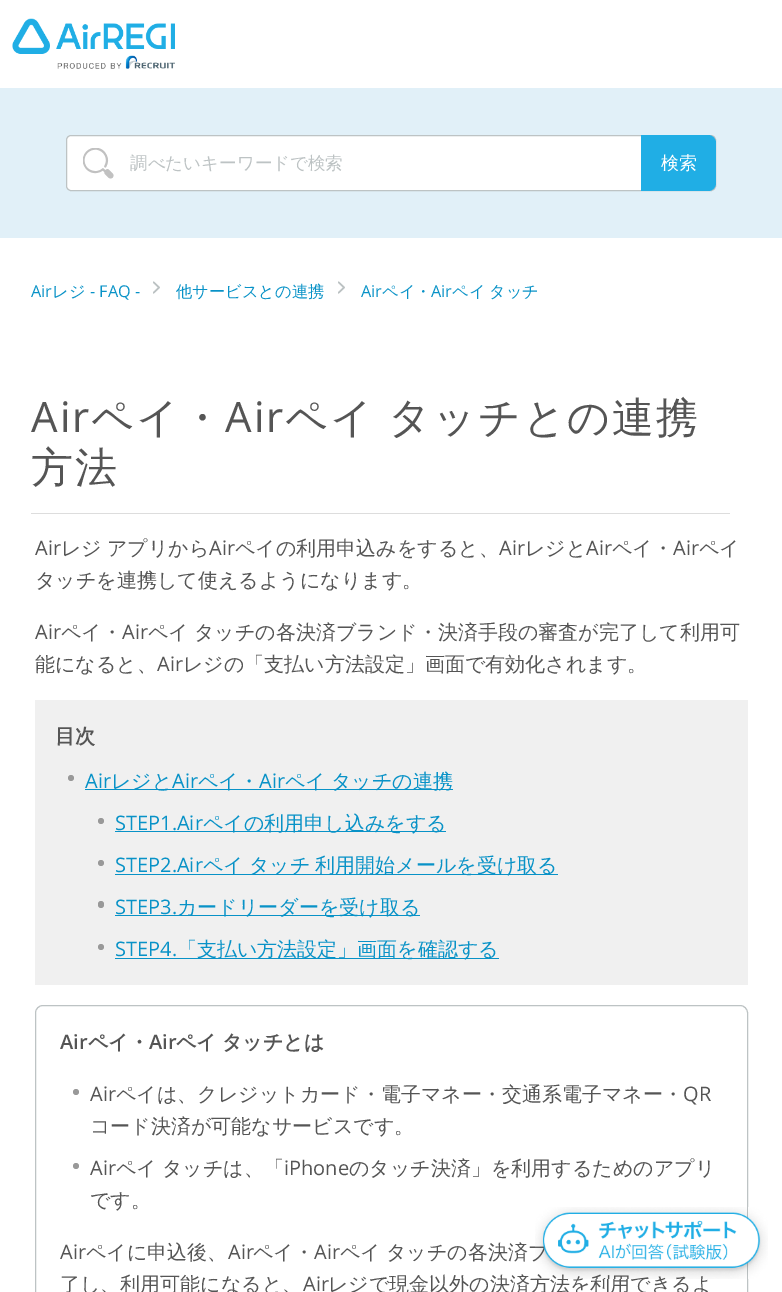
%!PS
<< /PageSize [782 1292] >> setpagedevice
/mt/moveto load def
/li/lineto load def
/ct/curveto load def
/cp/closepath load def
/fl/fill load def
/st/stroke load def
/gs/gsave load def
/gr/grestore load def
/co { dup -16 bitshift 255 div exch dup -8 bitshift 255 and 255 div exch 255 and 255 div setrgbcolor } def
/fn { [ exch dup neg 0 0 3 -1 roll 0 0 ] selectfont } def
/tx { co fn moveto show } def
/bx { co rectfill } def
/ci { newpath 0 360 arc closepath } def
/rr { 5 dict begin { /r /h /w /y /x } { exch def } forall
  x r add y moveto x w add y 2 copy h add r arct x w add y h add x 1 index r arct
  x y h add x y r arct x y 2 copy exch w add exch r arct closepath end } def
/im { 5 dict begin { /h /w /y /x /name } { exch def } forall
  gsave x y translate w h scale
  w h 8 [w 0 0 h 0 0] name (r) file false 3 colorimage grestore end } def
0 1292 translate 1 -1 scale
4 setmiterlimit
0 0 782 1292 16#FFFFFF bx
(media/1.raw) 12 18 163 51 im
0 88 782 150 16#E1F0F8 bx
16#FFFFFF co
66.5 135.5 649 55 4.5 rr gs fl gr
16#BDC3C4 co
st
(media/2.raw) 83 148 31 31 im
16#20AEE5 co
641 135 mt 708 135 li 712.5 135 716 138.5 716 143 ct 716 183 li 716 187.5 712.5 191 708 191 ct 641 191 li cp fl
(media/3.raw) 153 281 7 13 im
(media/3.raw) 338 281 7 13 im
31 513 699 1 16#DDDDDD bx
35 700 713 285 16#F0F0F0 bx
16#999999 co
71 778 3 ci fl
85 789 368 1 16#0892C7 bx
16#999999 co
101 821 3 ci fl
115 831 331 1 16#0892C7 bx
16#999999 co
101 863 3 ci fl
115 874 443 1 16#0892C7 bx
16#999999 co
98 901 6 7 3 rr fl
115 915 305 1 16#0892C7 bx
16#999999 co
101 947 3 ci fl
115 958 384 1 16#0892C7 bx
16#BDC3C4 co
35.5 1005.5 712 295 7.5 rr st
16#999999 co
76 1092 3 ci fl
76 1166 3 ci fl
(調べたいキーワードで検索) 130 169 /WenQuanYiZenHei-Medium 17.5 16#BDC3C4 tx
(検索) 661 169 /WenQuanYiZenHei-Medium 18 16#FFFFFF tx
(Air) 31 297 /OpenSans-Regular 16.25 16#0892C7 tx
(レジ) 52 297 /WenQuanYiZenHei-Medium 16.25 16#0892C7 tx
(- FAQ -) 90 297 /OpenSans-Regular 16.25 16#0892C7 tx
(他サービスとの連携) 176 297 /WenQuanYiZenHei-Medium 16.25 16#0892C7 tx
(Air) 361 297 /OpenSans-Regular 16.25 16#0892C7 tx
(ペイ・) 382 297 /WenQuanYiZenHei-Medium 16.25 16#0892C7 tx
(Air) 431 297 /OpenSans-Regular 16.25 16#0892C7 tx
/WenQuanYiZenHei-Medium 16.25 fn
452 297 mt -1 0 32 (ペイ タッチ) widthshow
/OpenSans-Regular 42 fn
16#555555 co
31 432 mt 2 0 (Air) ashow
/WenQuanYiZenHei-Medium 42 fn
91 432 mt 2 0 (ペイ・) ashow
/OpenSans-Regular 42 fn
225 432 mt 2 0 (Air) ashow
/WenQuanYiZenHei-Medium 42 fn
285 432 mt -2 0 32 2 0 (ペイ タッチとの連携) awidthshow
31 482 mt 2 0 (方法) ashow
(Air) 35 555 /OpenSans-Regular 20 16#555555 tx
/WenQuanYiZenHei-Medium 20 fn
61 555 mt -1 0 32 (レジ アプリから) widthshow
(Air) 209 555 /OpenSans-Regular 20 16#555555 tx
(ペイの利用申込みをすると、) 235 555 /WenQuanYiZenHei-Medium 20 16#555555 tx
(Air) 499 555 /OpenSans-Regular 20 16#555555 tx
(レジと) 525 555 /WenQuanYiZenHei-Medium 20 16#555555 tx
(Air) 586 555 /OpenSans-Regular 20 16#555555 tx
(ペイ・) 612 555 /WenQuanYiZenHei-Medium 20 16#555555 tx
(Air) 673 555 /OpenSans-Regular 20 16#555555 tx
(ペイ) 699 555 /WenQuanYiZenHei-Medium 20 16#555555 tx
(タッチを連携して使えるようになります。) 35 587 /WenQuanYiZenHei-Medium 20 16#555555 tx
(Air) 35 639 /OpenSans-Regular 20 16#555555 tx
(ペイ・) 61 639 /WenQuanYiZenHei-Medium 20 16#555555 tx
(Air) 122 639 /OpenSans-Regular 20 16#555555 tx
/WenQuanYiZenHei-Medium 20 fn
148 639 mt -1 0 32 (ペイ タッチの各決済ブランド・決済手段の審査が完了して利用可) widthshow
(能になると、) 35 671 /WenQuanYiZenHei-Medium 20 16#555555 tx
(Air) 157 671 /OpenSans-Regular 20 16#555555 tx
(レジの「支払い方法設定」画面で有効化されます。) 183 671 /WenQuanYiZenHei-Medium 20 16#555555 tx
(目次) 55 743 /WenQuanYiZenHei-Bold 20 16#555555 tx
(Air) 85 788 /OpenSans-Regular 20 16#0892C7 tx
(レジと) 111 788 /WenQuanYiZenHei-Medium 20 16#0892C7 tx
(Air) 172 788 /OpenSans-Regular 20 16#0892C7 tx
(ペイ・) 198 788 /WenQuanYiZenHei-Medium 20 16#0892C7 tx
(Air) 259 788 /OpenSans-Regular 20 16#0892C7 tx
/WenQuanYiZenHei-Medium 20 fn
285 788 mt -1 0 32 (ペイ タッチの連携) widthshow
(STEP1.Air) 115 830 /OpenSans-Regular 20 16#0892C7 tx
(ペイの利用申し込みをする) 203 830 /WenQuanYiZenHei-Medium 20 16#0892C7 tx
(STEP2.Air) 115 872 /OpenSans-Regular 20 16#0892C7 tx
/WenQuanYiZenHei-Medium 20 fn
203 872 mt -1 0 32 (ペイ タッチ 利用開始メールを受け取る) widthshow
(STEP3.) 115 914 /OpenSans-Regular 20 16#0892C7 tx
(カードリーダーを受け取る) 177 914 /WenQuanYiZenHei-Medium 20 16#0892C7 tx
(STEP4.) 115 956 /OpenSans-Regular 20 16#0892C7 tx
(「支払い方法設定」画面を確認する) 177 956 /WenQuanYiZenHei-Medium 20 16#0892C7 tx
(Air) 60 1049 /OpenSans-SemiBold 20 16#555555 tx
(ペイ・) 88 1049 /WenQuanYiZenHei-Bold 20 16#555555 tx
(Air) 149 1049 /OpenSans-SemiBold 20 16#555555 tx
/WenQuanYiZenHei-Bold 20 fn
176 1049 mt -1 0 32 (ペイ タッチとは) widthshow
(Air) 90 1101 /OpenSans-Regular 20 16#555555 tx
(ペイは、クレジットカード・電子マネー・交通系電子マネー・) 116 1101 /WenQuanYiZenHei-Medium 20 16#555555 tx
(QR) 683 1101 /OpenSans-Regular 20 16#555555 tx
(コード決済が可能なサービスです。) 90 1133 /WenQuanYiZenHei-Medium 20 16#555555 tx
(Air) 90 1175 /OpenSans-Regular 20 16#555555 tx
/WenQuanYiZenHei-Medium 20 fn
116 1175 mt -1 0 32 (ペイ タッチは、「) widthshow
(iPhone) 284 1175 /OpenSans-Regular 20 16#555555 tx
(のタッチ決済」を利用するためのアプリ) 349 1175 /WenQuanYiZenHei-Medium 20 16#555555 tx
(です。) 90 1207 /WenQuanYiZenHei-Medium 20 16#555555 tx
(Air) 60 1259 /OpenSans-Regular 20 16#555555 tx
(ペイに申込後、) 86 1259 /WenQuanYiZenHei-Medium 20 16#555555 tx
(Air) 228 1259 /OpenSans-Regular 20 16#555555 tx
(ペイ・) 253 1259 /WenQuanYiZenHei-Medium 20 16#555555 tx
(Air) 314 1259 /OpenSans-Regular 20 16#555555 tx
/WenQuanYiZenHei-Medium 20 fn
340 1259 mt -1 0 32 (ペイ タッチの各決済ブ) widthshow
(了し、利用可能になると、) 60 1291 /WenQuanYiZenHei-Medium 20 16#555555 tx
(Air) 303 1291 /OpenSans-Regular 20 16#555555 tx
(レジで現金以外の決済方法を利用できるよ) 328 1291 /WenQuanYiZenHei-Medium 20 16#555555 tx
(media/4.raw) 535 1207 233 72 im
showpage
